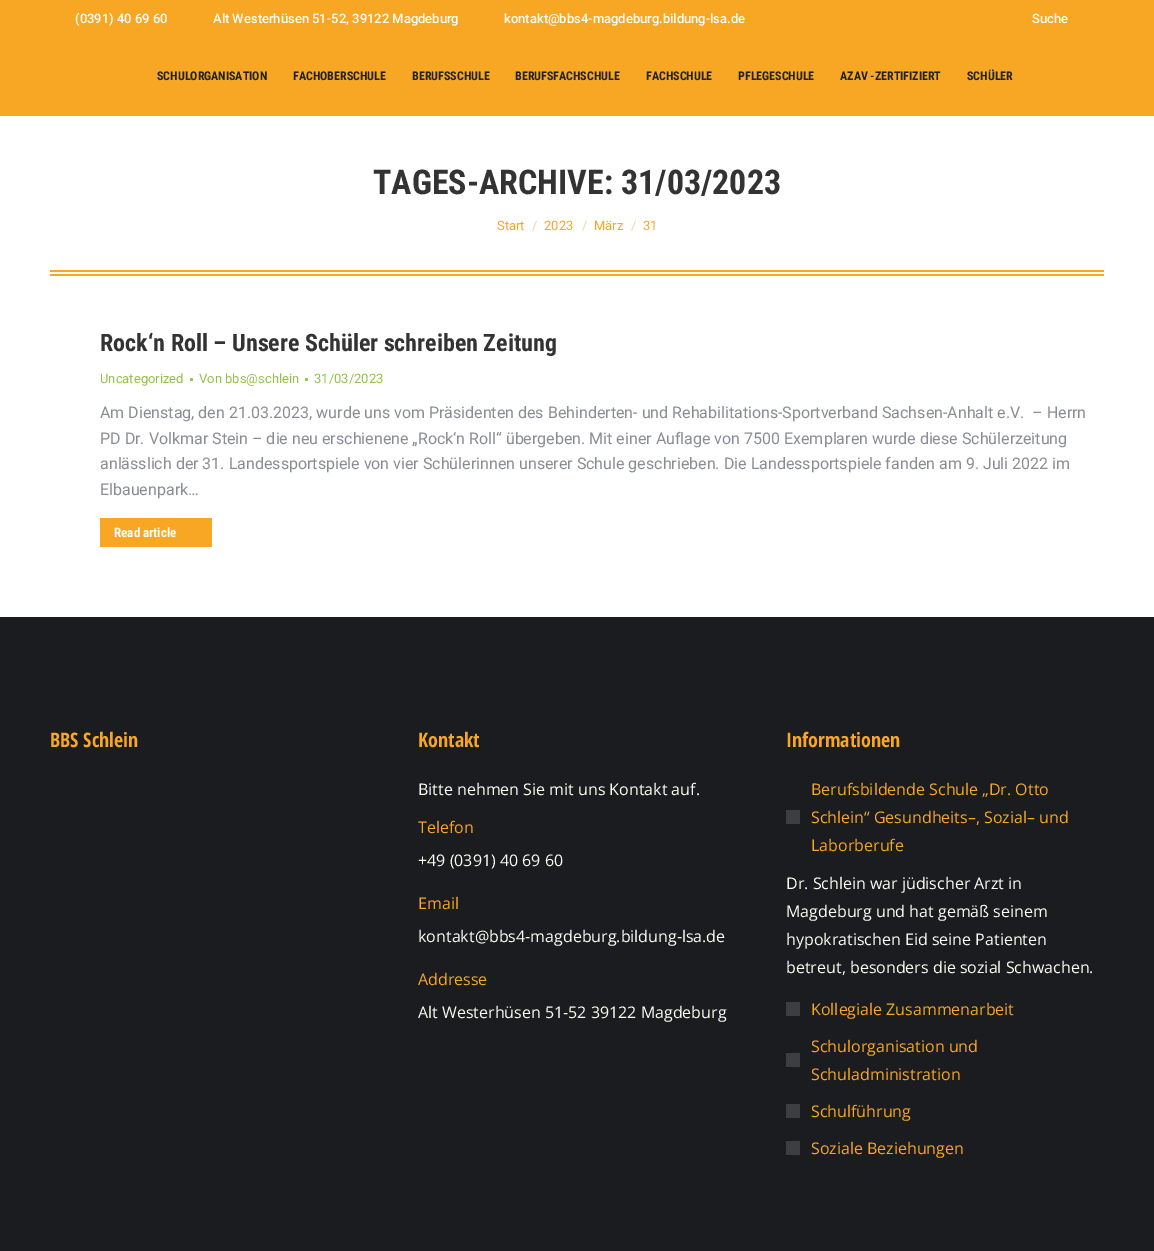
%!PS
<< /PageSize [1154 1251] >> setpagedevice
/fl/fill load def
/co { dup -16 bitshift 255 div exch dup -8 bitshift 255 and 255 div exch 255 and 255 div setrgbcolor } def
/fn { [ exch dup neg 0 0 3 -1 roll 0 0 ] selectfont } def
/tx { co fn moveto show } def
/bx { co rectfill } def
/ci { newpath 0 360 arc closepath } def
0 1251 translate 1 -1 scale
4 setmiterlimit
0 0 1154 1251 16#FFFFFF bx
0 0 1154 116 16#F7A723 bx
50 270 1054 2 16#F7A723 bx
50 274 1054 2 16#F7A723 bx
16#93C248 co
191.5 379.5 1.5 ci fl
306.5 379.5 1.5 ci fl
100 518 112 29 16#F7A723 bx
0 617 1154 634 16#1A1C20 bx
786 810 14 14 16#3C3E40 bx
786 1002 14 14 16#3C3E40 bx
786 1053 14 14 16#3C3E40 bx
786 1104 14 14 16#3C3E40 bx
786 1141 14 14 16#3C3E40 bx
(\(0391\) 40 69 60) 75 23 /Roboto-Medium 13 16#FFFFFF tx
(Alt Westerhüsen 51-52, 39122 Magdeburg) 213 23 /Roboto-Medium 13 16#FFFFFF tx
(kontakt@bbs4-magdeburg.bildung-lsa.de) 504 23 /Roboto-Medium 13 16#FFFFFF tx
(Suche) 1032 23 /Roboto-Medium 13 16#FFFFFF tx
(SCHULORGANISATION) 157 80 /RobotoCondensed-Bold 12 16#222222 tx
(FACHOBERSCHULE) 293 80 /RobotoCondensed-Bold 12 16#222222 tx
(BERUFSSCHULE) 412 80 /RobotoCondensed-Bold 12 16#222222 tx
(BERUFSFACHSCHULE) 515 80 /RobotoCondensed-Bold 12 16#222222 tx
(FACHSCHULE) 646 80 /RobotoCondensed-Bold 12 16#222222 tx
(PFLEGESCHULE) 738 80 /RobotoCondensed-Bold 12 16#222222 tx
(AZAV -ZERTIFIZIERT) 840 80 /RobotoCondensed-Bold 12 16#222222 tx
(SCHÜLER) 967 80 /RobotoCondensed-Bold 12 16#222222 tx
(TAGES-ARCHIVE: 31/03/2023) 373 194 /RobotoCondensed-Bold 34 16#333333 tx
(Start) 497 230 /Roboto-Regular 13 16#F7A723 tx
(/) 532 230 /Roboto-Regular 13 16#FBD391 tx
(2023) 544 230 /Roboto-Regular 13 16#F7A723 tx
(/) 582 230 /Roboto-Regular 13 16#FBD391 tx
(März) 594 230 /Roboto-Regular 13 16#F7A723 tx
(/) 631 230 /Roboto-Regular 13 16#FBD391 tx
(31) 643 230 /Roboto-Regular 13 16#F7A723 tx
(Rock‘n Roll – Unsere Schüler schreiben Zeitung) 100 351 /RobotoCondensed-Bold 24 16#333333 tx
(Uncategorized) 100 383 /Roboto-Regular 13 16#93C248 tx
(Von bbs@schlein) 199 383 /Roboto-Regular 13 16#93C248 tx
(31/03/2023) 314 383 /Roboto-Regular 13 16#93C248 tx
(Am Dienstag, den 21.03.2023, wurde uns vom Präsidenten des Behinderten- und Rehabilitations-Sportverband Sachsen-Anhalt e.V.  – Herrn) 100 418 /Roboto-Regular 16 16#8B8D94 tx
(PD Dr. Volkmar Stein – die neu erschienene „Rock‘n Roll“ übergeben. Mit einer Auflage von 7500 Exemplaren wurde diese Schülerzeitung) 100 444 /Roboto-Regular 16 16#8B8D94 tx
(anlässlich der 31. Landessportspiele von vier Schülerinnen unserer Schule geschrieben. Die Landessportspiele fanden am 9. Juli 2022 im) 100 469 /Roboto-Regular 16 16#8B8D94 tx
(Elbauenpark…) 100 495 /Roboto-Regular 16 16#8B8D94 tx
(Read article) 114 537 /RobotoCondensed-Bold 13 16#FFFFFF tx
(BBS Schlein) 50 747 /OpenSansCondensed-Bold 20 16#F7A723 tx
(Kontakt) 418 747 /OpenSansCondensed-Bold 20 16#F7A723 tx
(Bitte nehmen Sie mit uns Kontakt auf.) 418 795 /OpenSans-Regular 16 16#FFFDF2 tx
(Telefon) 418 833 /OpenSans-Regular 16 16#F7A723 tx
(+49 \(0391\) 40 69 60) 418 866 /OpenSans-Regular 16 16#FFFDF2 tx
(Email) 418 909 /OpenSans-Regular 16 16#F7A723 tx
(kontakt@bbs4-magdeburg.bildung-lsa.de) 418 942 /OpenSans-Regular 16 16#FFFDF2 tx
(Addresse) 418 985 /OpenSans-Regular 16 16#F7A723 tx
(Alt Westerhüsen 51-52 39122 Magdeburg) 418 1018 /OpenSans-Regular 16 16#FFFDF2 tx
(Informationen) 786 747 /OpenSansCondensed-Bold 20 16#F7A723 tx
(Berufsbildende Schule „Dr. Otto) 811 795 /OpenSans-Regular 16 16#F7A723 tx
(Schlein“ Gesundheits–, Sozial– und) 811 823 /OpenSans-Regular 16 16#F7A723 tx
(Laborberufe) 811 851 /OpenSans-Regular 16 16#F7A723 tx
(Dr. Schlein war jüdischer Arzt in) 786 889 /OpenSans-Regular 16 16#FFFDF2 tx
(Magdeburg und hat gemäß seinem) 786 917 /OpenSans-Regular 16 16#FFFDF2 tx
(hypokratischen Eid seine Patienten) 786 945 /OpenSans-Regular 16 16#FFFDF2 tx
(betreut, besonders die sozial Schwachen.) 786 973 /OpenSans-Regular 16 16#FFFDF2 tx
(Kollegiale Zusammenarbeit) 811 1015 /OpenSans-Regular 16 16#F7A723 tx
(Schulorganisation und) 811 1052 /OpenSans-Regular 16 16#F7A723 tx
(Schuladministration) 811 1080 /OpenSans-Regular 16 16#F7A723 tx
(Schulführung) 811 1117 /OpenSans-Regular 16 16#F7A723 tx
(Soziale Beziehungen) 811 1154 /OpenSans-Regular 16 16#F7A723 tx
showpage
